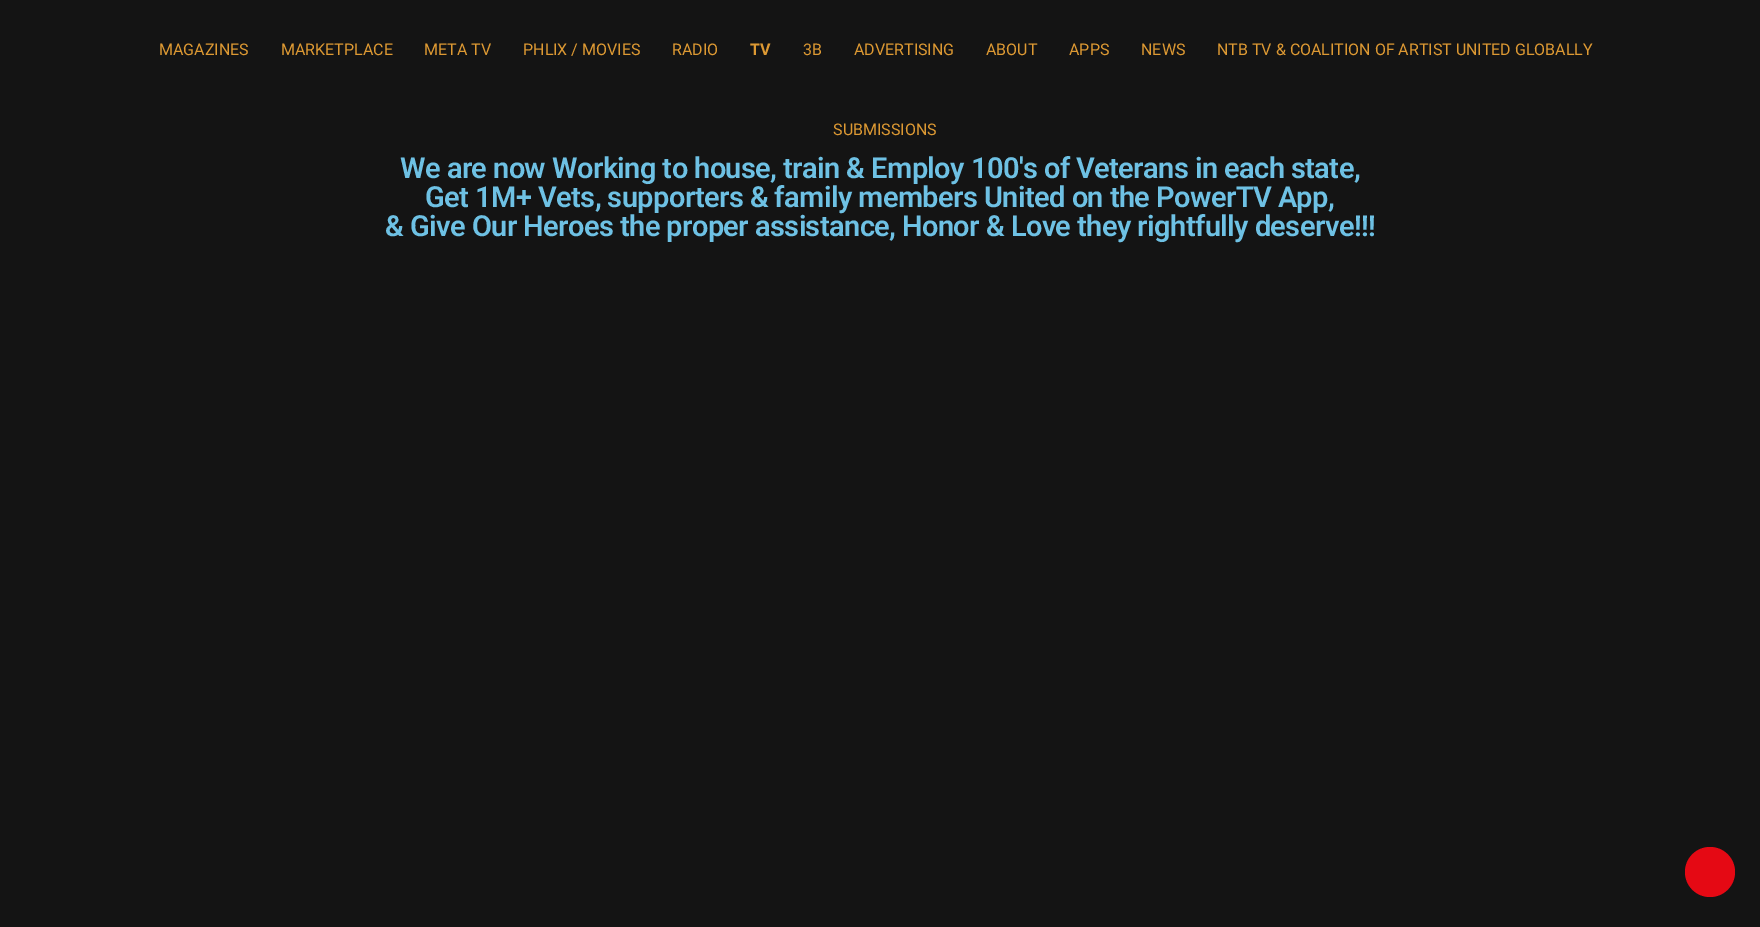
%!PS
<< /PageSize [1760 927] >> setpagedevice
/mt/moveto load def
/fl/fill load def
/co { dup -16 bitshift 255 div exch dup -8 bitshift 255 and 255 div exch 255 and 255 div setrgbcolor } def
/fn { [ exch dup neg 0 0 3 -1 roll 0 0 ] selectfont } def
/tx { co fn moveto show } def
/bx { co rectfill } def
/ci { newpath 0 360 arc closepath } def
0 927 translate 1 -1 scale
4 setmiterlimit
0 0 1760 927 16#141414 bx
16#E50914 co
1710 872 25 ci fl
(MAGAZINES) 159 55 /Roboto-Regular 16 16#DD9933 tx
(MARKETPLACE) 281 55 /Roboto-Regular 16 16#DD9933 tx
(META TV) 424 55 /Roboto-Regular 16 16#DD9933 tx
(PHLIX / MOVIES) 523 55 /Roboto-Regular 16 16#DD9933 tx
(RADIO) 672 55 /Roboto-Regular 16 16#DD9933 tx
(TV) 750 55 /Roboto-Bold 16 16#DD9933 tx
(3B) 803 55 /Roboto-Regular 16 16#DD9933 tx
(ADVERTISING) 854 55 /Roboto-Regular 16 16#DD9933 tx
(ABOUT) 986 55 /Roboto-Regular 16 16#DD9933 tx
(APPS) 1069 55 /Roboto-Regular 16 16#DD9933 tx
(NEWS) 1141 55 /Roboto-Regular 16 16#DD9933 tx
(NTB TV & COALITION OF ARTIST UNITED GLOBALLY) 1217 55 /Roboto-Regular 16 16#DD9933 tx
(SUBMISSIONS) 833 135 /Roboto-Regular 16 16#DD9933 tx
/Roboto-SemiBold 29 fn
16#6EC1E4 co
400 178 mt -.58 0 (We are now Working to house, train & Employ 100's of Veterans in each state,) ashow
425 207 mt -.58 0 (Get 1M+ Vets, supporters & family members United on the PowerTV App,) ashow
385 236 mt -.58 0 (& Give Our Heroes the proper assistance, Honor & Love they rightfully deserve!!!) ashow
showpage
